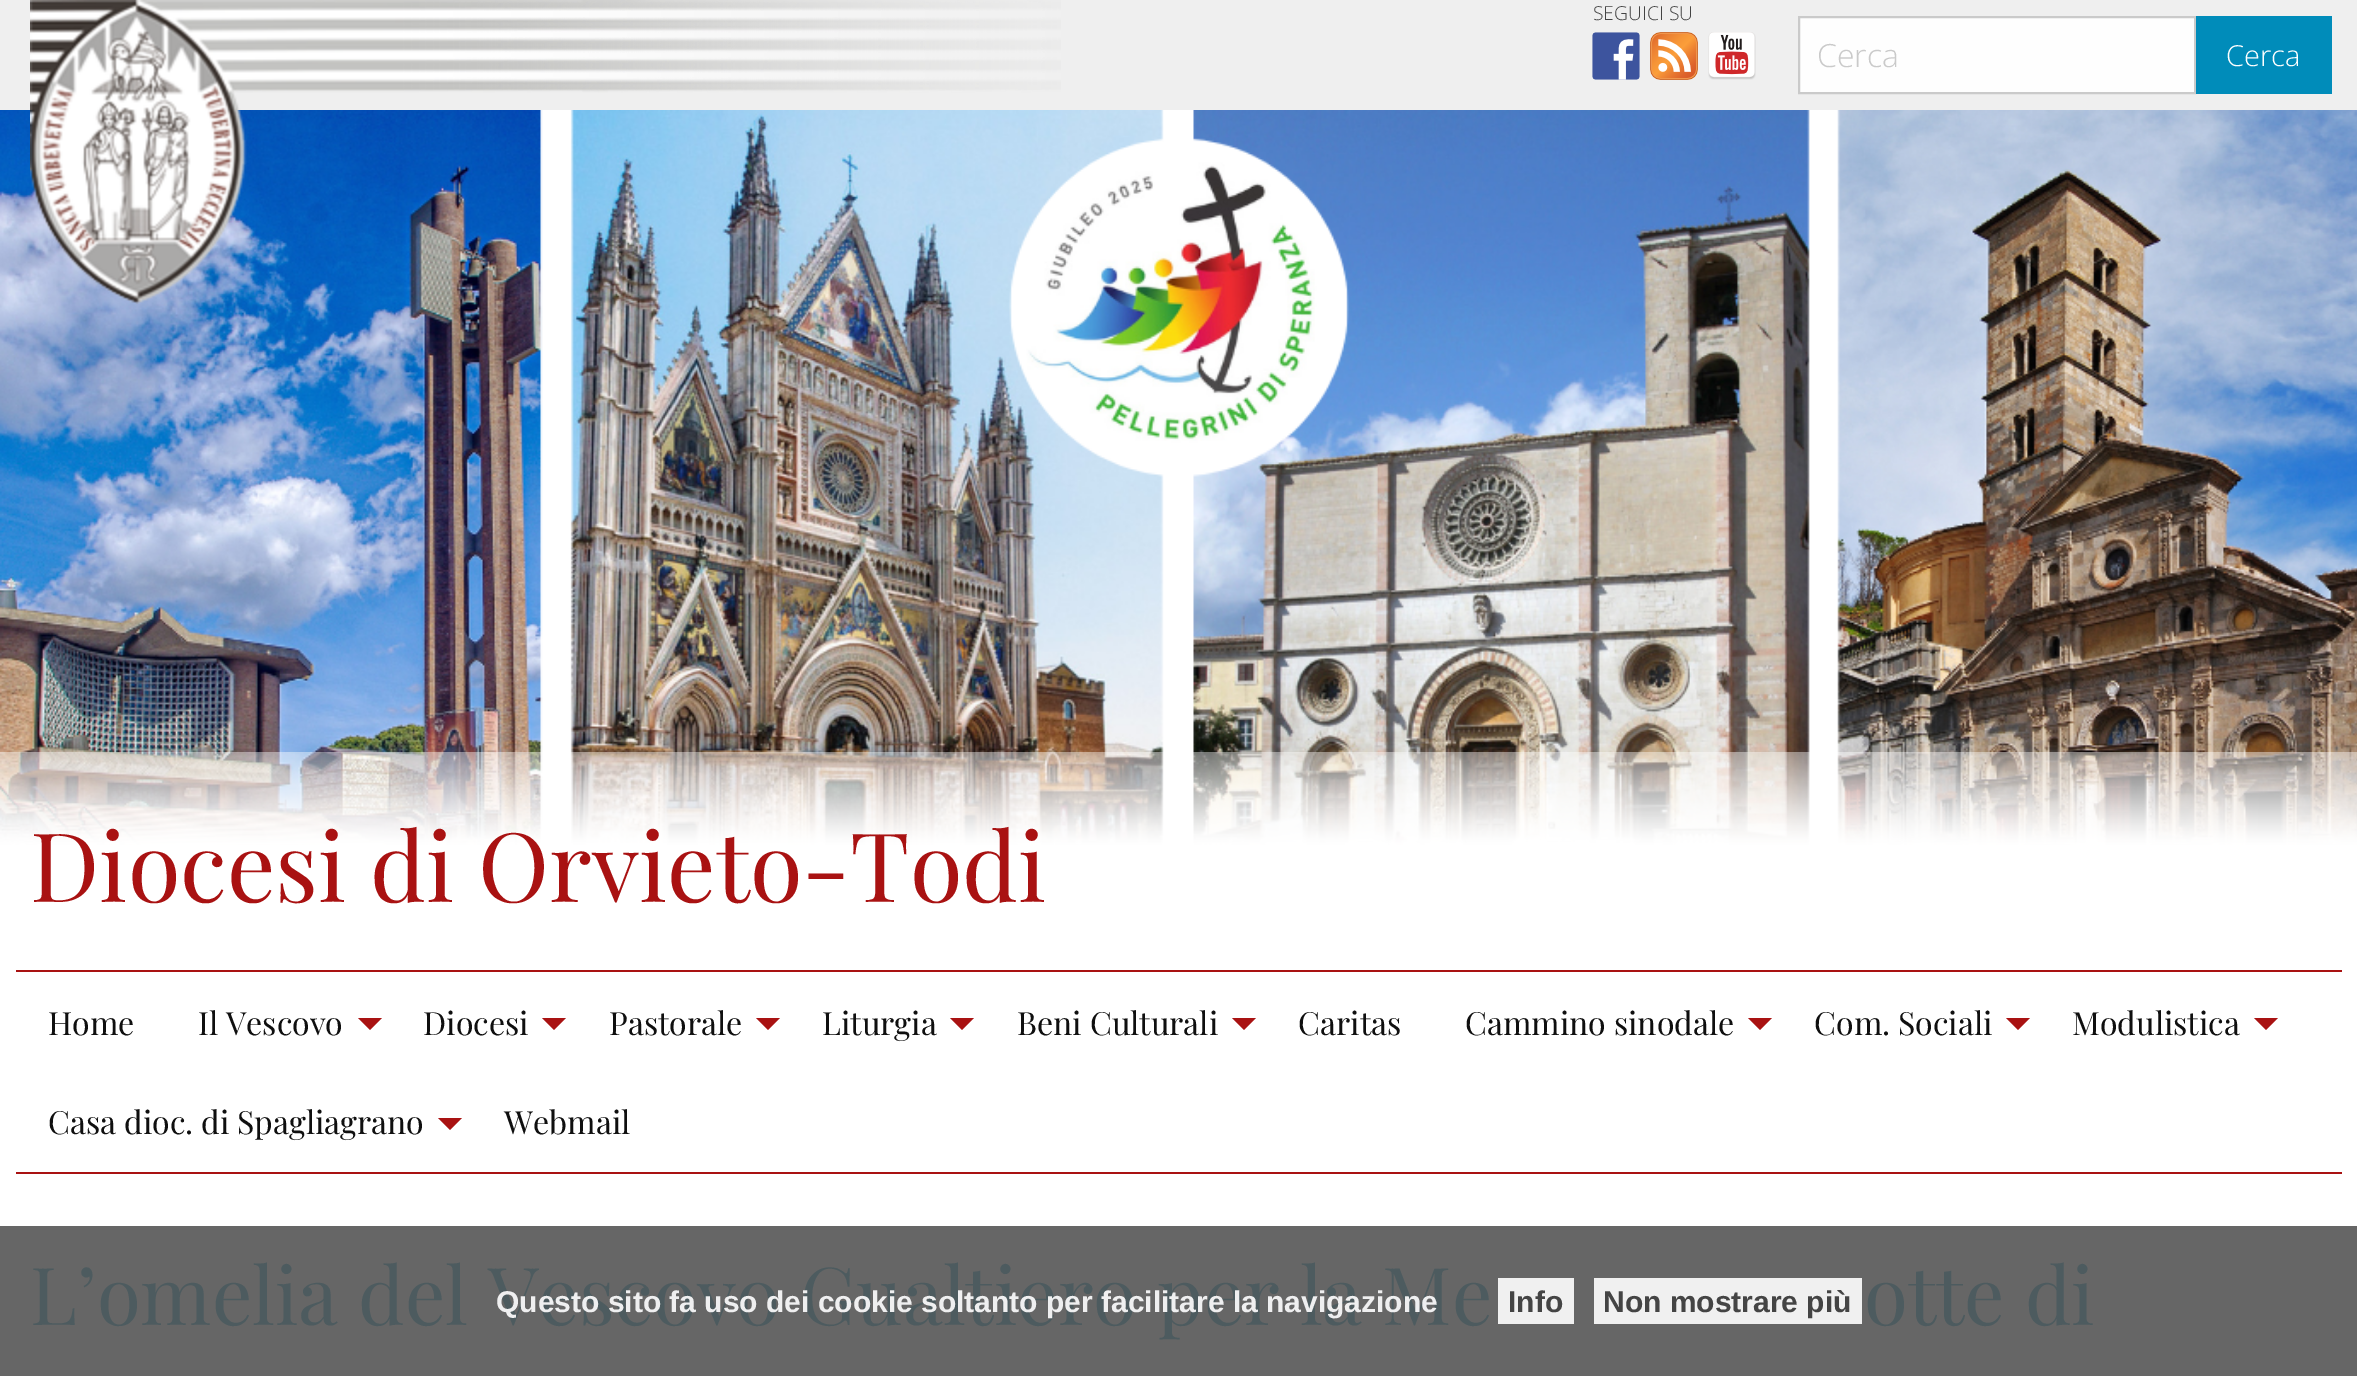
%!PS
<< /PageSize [2357 1376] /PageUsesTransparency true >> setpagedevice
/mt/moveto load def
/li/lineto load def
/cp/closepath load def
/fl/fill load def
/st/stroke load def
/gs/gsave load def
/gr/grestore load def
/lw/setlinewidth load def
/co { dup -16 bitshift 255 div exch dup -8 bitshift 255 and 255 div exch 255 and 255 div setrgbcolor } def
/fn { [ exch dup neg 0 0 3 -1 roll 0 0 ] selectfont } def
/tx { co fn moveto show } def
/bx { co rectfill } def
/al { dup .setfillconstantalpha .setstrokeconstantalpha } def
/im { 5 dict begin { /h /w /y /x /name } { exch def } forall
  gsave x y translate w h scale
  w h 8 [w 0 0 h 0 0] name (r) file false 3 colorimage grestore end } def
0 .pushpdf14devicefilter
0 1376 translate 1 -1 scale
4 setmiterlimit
0 0 2357 1376 16#EFEFEF bx
(media/1.raw) 0 110 2357 733 im
(media/2.raw) 0 752 2357 202 im
(media/3.raw) 1592 32 48 48 im
(media/4.raw) 1650 32 48 48 im
(media/5.raw) 1708 32 48 48 im
16#FEFEFE co
1799 17 mt 2195 17 li 2195 93 li 1799 93 li cp gs fl gr
16#CACACA co
2 lw
st
2196 16 136 78 16#008CBA bx
(media/6.raw) 30 0 1031 304 im
0 954 2357 272 16#FFFFFF bx
16 970 2326 2 16#A91212 bx
16 1172 2326 2 16#A91212 bx
358 1018 mt 382 1018 li 370 1030 li cp fl
542 1018 mt 566 1018 li 554 1030 li cp fl
756 1018 mt 780 1018 li 768 1030 li cp fl
950 1018 mt 974 1018 li 962 1030 li cp fl
1232 1018 mt 1256 1018 li 1244 1030 li cp fl
1748 1018 mt 1772 1018 li 1760 1030 li cp fl
2006 1018 mt 2030 1018 li 2018 1030 li cp fl
2254 1018 mt 2278 1018 li 2266 1030 li cp fl
438 1118 mt 462 1118 li 450 1130 li cp fl
0 1226 2357 150 16#666666 bx
0.9 al
1498 1278 76 46 16#FFFFFF bx
1594 1278 268 46 16#FFFFFF bx
1 al
(SEGUICI SU) 1593 20 /OpenSans-Light 19.25 16#444444 tx
(Cerca) 1817 67 /OpenSans-Light 32 16#CACACA tx
(Cerca) 2226 66 /OpenSans-Light 29 16#FFFFFF tx
(Diocesi di Orvieto-Todi) 30 902 /PlayfairDisplay-Regular 96 16#A91212 tx
(Home) 48 1035 /PlayfairDisplay-Regular 32 16#0F0F0F tx
(Il Vescovo) 198 1035 /PlayfairDisplay-Regular 32 16#0F0F0F tx
(Diocesi) 423 1035 /PlayfairDisplay-Regular 32 16#0F0F0F tx
(Pastorale) 609 1035 /PlayfairDisplay-Regular 32 16#0F0F0F tx
(Liturgia) 822 1035 /PlayfairDisplay-Regular 32 16#0F0F0F tx
(Beni Culturali) 1017 1035 /PlayfairDisplay-Regular 32 16#0F0F0F tx
(Caritas) 1298 1035 /PlayfairDisplay-Regular 32 16#0F0F0F tx
(Cammino sinodale) 1465 1035 /PlayfairDisplay-Regular 32 16#0F0F0F tx
(Com. Sociali) 1814 1035 /PlayfairDisplay-Regular 32 16#0F0F0F tx
(Modulistica) 2072 1035 /PlayfairDisplay-Regular 32 16#0F0F0F tx
(Casa dioc. di Spagliagrano) 48 1134 /PlayfairDisplay-Regular 32 16#0F0F0F tx
(Webmail) 504 1134 /PlayfairDisplay-Regular 32 16#0F0F0F tx
(L’omelia del Vescovo Gualtiero per la Me) 30 1325 /PlayfairDisplay-Regular 80 16#4D5B5F tx
(otte di) 1864 1325 /PlayfairDisplay-Regular 80 16#4D5B5F tx
(Questo sito fa uso dei cookie soltanto per facilitare la navigazione) 496 1312 /LiberationSans-Bold 30 16#EFEFF0 tx
(Info) 1508 1312 /LiberationSans-Bold 30 16#444444 tx
(Non mostrare più) 1603 1312 /LiberationSans-Bold 30 16#444444 tx
.poppdf14devicefilter showpage
